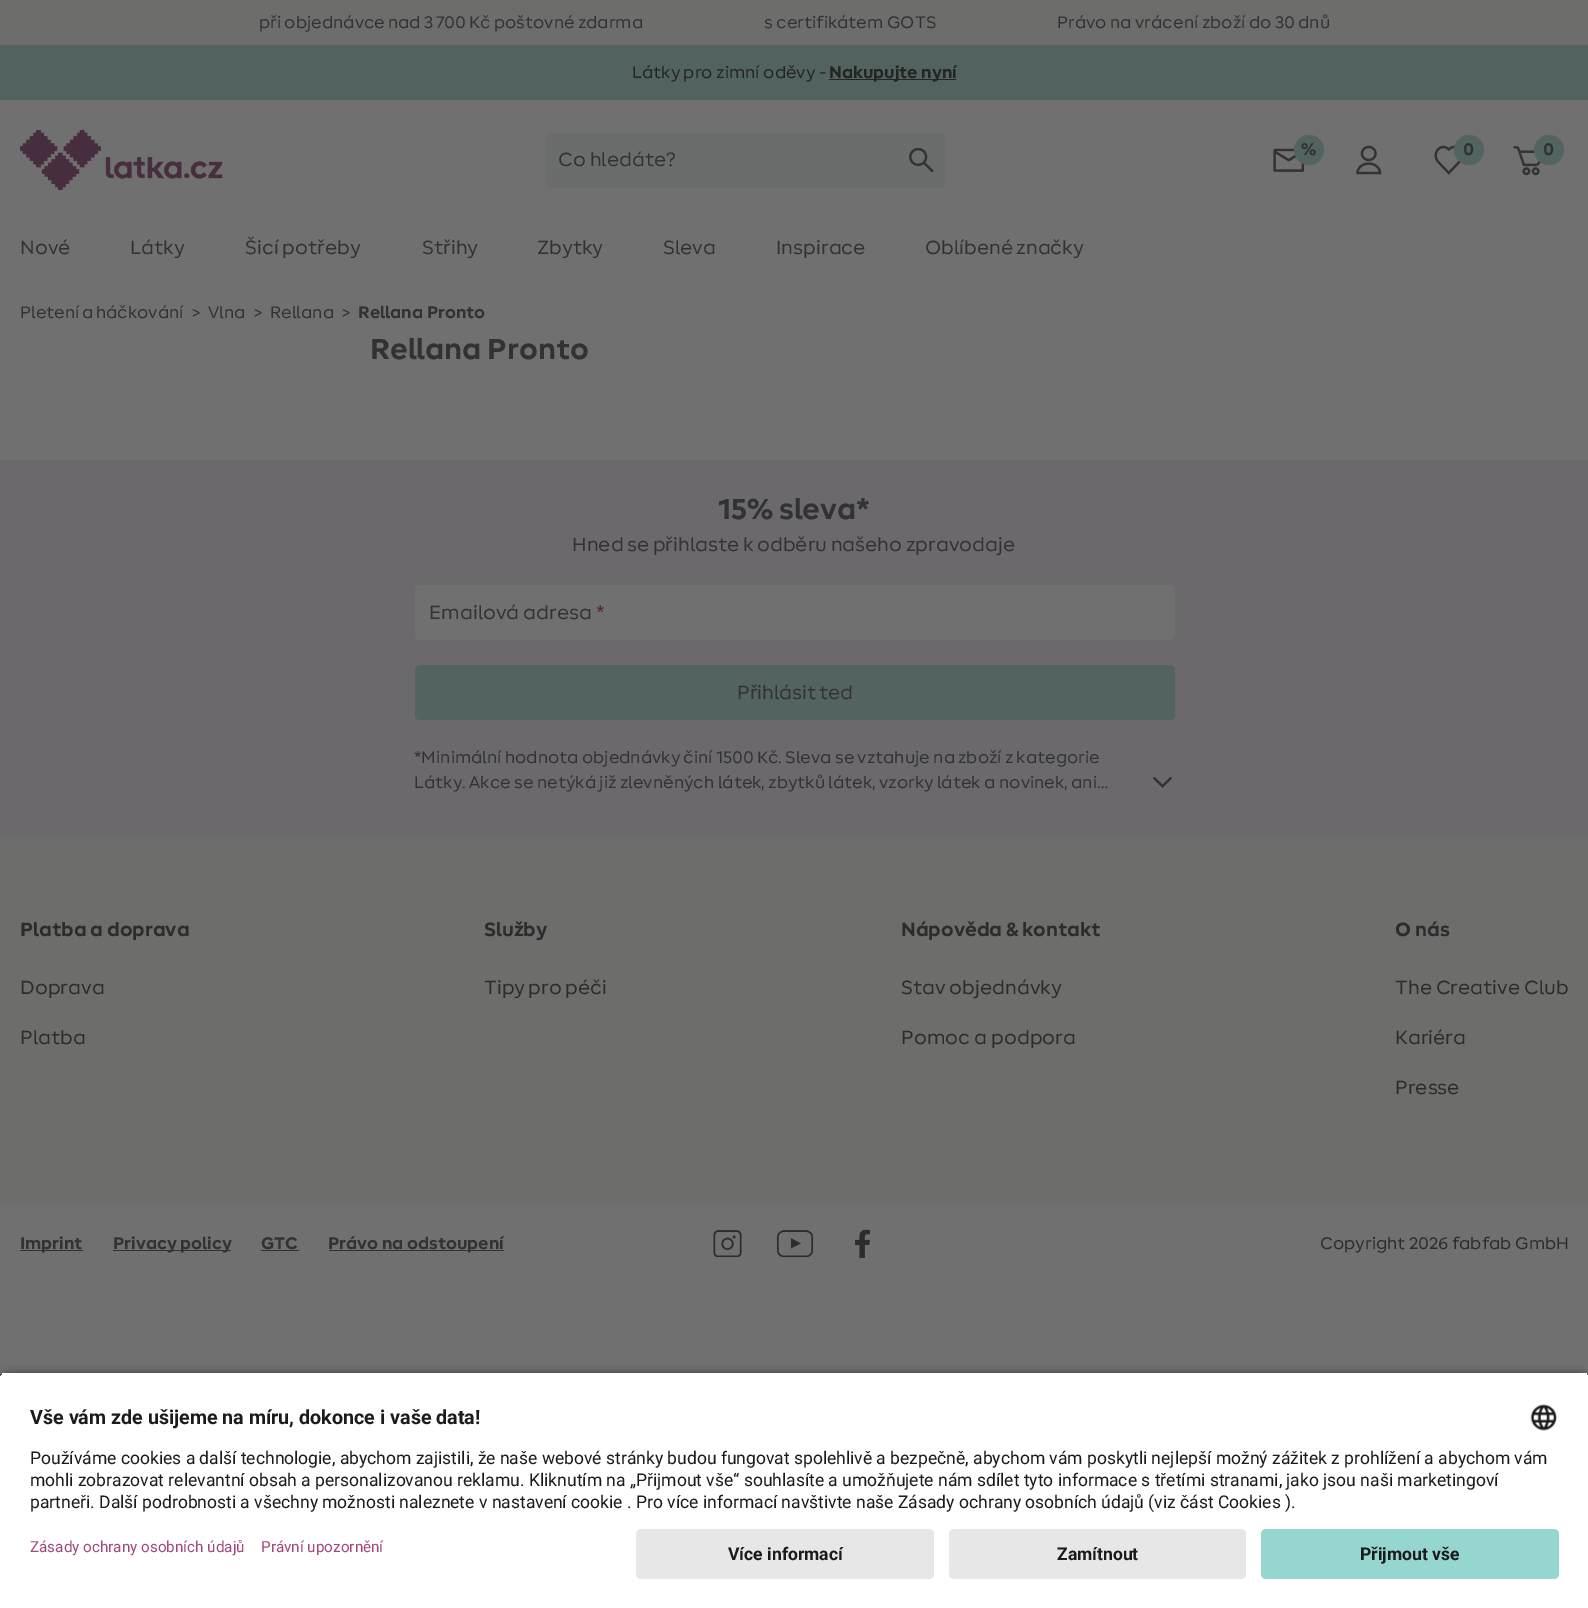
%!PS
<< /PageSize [1588 1608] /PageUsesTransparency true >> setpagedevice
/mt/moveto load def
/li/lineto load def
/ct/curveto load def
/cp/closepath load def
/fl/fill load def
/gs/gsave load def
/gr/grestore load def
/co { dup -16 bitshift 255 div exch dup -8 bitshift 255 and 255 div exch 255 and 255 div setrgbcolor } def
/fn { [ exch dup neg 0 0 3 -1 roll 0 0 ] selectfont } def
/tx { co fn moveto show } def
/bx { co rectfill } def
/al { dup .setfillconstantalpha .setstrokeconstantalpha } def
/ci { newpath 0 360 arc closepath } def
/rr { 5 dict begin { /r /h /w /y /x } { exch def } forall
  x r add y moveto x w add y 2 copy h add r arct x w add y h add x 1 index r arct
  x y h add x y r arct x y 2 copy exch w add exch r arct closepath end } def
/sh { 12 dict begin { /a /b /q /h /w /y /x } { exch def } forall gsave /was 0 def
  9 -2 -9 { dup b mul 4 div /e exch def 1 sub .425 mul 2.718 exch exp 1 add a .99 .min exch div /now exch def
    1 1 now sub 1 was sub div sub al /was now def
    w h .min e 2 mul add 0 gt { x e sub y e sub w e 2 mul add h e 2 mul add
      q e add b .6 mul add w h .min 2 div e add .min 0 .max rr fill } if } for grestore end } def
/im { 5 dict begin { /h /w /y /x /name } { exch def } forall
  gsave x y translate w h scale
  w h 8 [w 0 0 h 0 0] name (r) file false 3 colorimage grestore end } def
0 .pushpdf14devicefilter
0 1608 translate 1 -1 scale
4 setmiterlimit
0 0 1588 1608 16#707070 bx
0 0 1588 45 16#6D6D6C bx
0 45 1588 55 16#52625F bx
829 79 127 1 16#242424 bx
(media/1.raw) 20 130 203 60 im
(media/2.raw) 1273 148 32 24 im
16#53635F co
1309 150 15 ci fl
(media/3.raw) 1356 145 26 30 im
(media/4.raw) 1434 145 27 30 im
1469 150 15 ci fl
(media/5.raw) 1513 145 28 31 im
1549 150 15 ci fl
16#6B6C6C co
546 133 400 55 5 rr fl
(media/6.raw) 909 148 25 25 im
0 460 1588 375 16#6B696B bx
16#707070 co
415 585 760 55 5 rr fl
16#53635F co
415 665 760 55 5 rr fl
(media/7.raw) 1153 777 19 11 im
0 835 1588 370 16#6D6D6C bx
20 1250 63 1 16#323235 bx
113 1250 118 1 16#323235 bx
261 1250 38 1 16#323235 bx
329 1250 175 1 16#323235 bx
(media/8.raw) 713 1230 29 28 im
(media/9.raw) 776 1230 38 28 im
(media/10.raw) 855 1229 15 29 im
16#000000 co
0 1375 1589 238 10 4.5 .8 sh
gs
10 1371 mt 1579 1371 li 1584.5 1371 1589 1375.5 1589 1381 ct 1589 1519 li 0 1519 li 0 1381 li 0 1375.5 4.5 1371 10 1371 ct cp clip newpath
0 1373 1588 146 16#FFFFFF bx
gr
(media/11.raw) 1530 1404 27 27 im
0 1519 1588 89 16#FFFFFF bx
16#E7E7E7 co
636 1529 298 50 5 rr fl
949 1529 297 50 5 rr fl
16#95D6D1 co
1261 1529 298 50 5 rr fl
/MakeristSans-Regular 17.5 fn
16#323235 co
259 28 mt -.5 0 32 (při objednávce nad 3 700 Kč poštovné zdarma) widthshow
(s certifikátem GOTS) 764 28 /MakeristSans-Regular 17.5 16#323235 tx
(Právo na vrácení zboží do 30 dnů) 1057 28 /MakeristSans-Regular 17.5 16#323235 tx
(Látky pro zimní oděvy -) 632 78 /MakeristSans-Regular 17.5 16#242424 tx
(Nakupujte nyní) 829 78 /MakeristSans-Bold 17.5 16#242424 tx
(%) 1301 155 /MakeristSans-Bold 17.5 16#323235 tx
(0) 1463 155 /MakeristSans-Bold 17.5 16#323235 tx
(0) 1543 155 /MakeristSans-Bold 17.5 16#323235 tx
(Co hledáte?) 558 166 /MakeristSans-Regular 20 16#323235 tx
(Nové) 20 254 /MakeristSans-Regular 20 16#323235 tx
(Látky) 130 254 /MakeristSans-Regular 20 16#323235 tx
(Šicí potřeby) 245 254 /MakeristSans-Regular 20 16#323235 tx
(Střihy) 422 254 /MakeristSans-Regular 20 16#323235 tx
(Zbytky) 537 254 /MakeristSans-Regular 20 16#323235 tx
(Sleva) 663 254 /MakeristSans-Regular 20 16#323235 tx
(Inspirace) 776 254 /MakeristSans-Regular 20 16#323235 tx
925 254 mt -1 0 32 (Oblíbené značky) widthshow
/MakeristSans-Regular 17.5 fn
20 318 mt -1 0 32 (Pletení a háčkování) widthshow
(>) 191 318 /MakeristSans-Regular 17.5 16#323235 tx
(Vlna) 208 318 /MakeristSans-Regular 17.5 16#323235 tx
(>) 253 318 /MakeristSans-Regular 17.5 16#323235 tx
(Rellana) 270 318 /MakeristSans-Regular 17.5 16#323235 tx
(>) 341 318 /MakeristSans-Regular 17.5 16#323235 tx
(Rellana Pronto) 358 318 /MakeristSans-Bold 17.5 16#323235 tx
(Rellana Pronto) 370 359 /MakeristSans-Bold 30 16#323235 tx
(15% sleva*) 718 519 /MakeristSans-Bold 30 16#323235 tx
/MakeristSans-Regular 20 fn
572 551 mt -.5 0 32 (Hned se přihlaste k odběru našeho zpravodaje) widthshow
(Emailová adresa) 429 619 /MakeristSans-Regular 20 16#323235 tx
(*) 596 619 /MakeristSans-Regular 20 16#57292A tx
gs
736 678 117 30 rectclip
16#323235 co
737 699 mt -1 0 32 (Přihlásit teď) widthshow
gr
/MakeristSans-Regular 17.5 fn
16#323235 co
414 763 mt -.25 0 32 (*Minimální hodnota objednávky činí 1500 Kč. Sleva se vztahuje na zboží z kategorie) widthshow
(Látky. Akce se netýká již zlevněných látek, zbytků látek, vzorky látek a novinek, ani…) 414 788 /MakeristSans-Regular 17.5 16#323235 tx
(Platba a doprava) 20 936 /MakeristSans-Bold 20 16#2C2C2C tx
(Doprava) 20 994 /MakeristSans-Regular 20 16#2C2C2C tx
(Platba) 20 1044 /MakeristSans-Regular 20 16#2C2C2C tx
(Služby) 484 936 /MakeristSans-Bold 20 16#2C2C2C tx
/MakeristSans-Regular 20 fn
484 994 mt -1 0 32 (Tipy pro péči) widthshow
/MakeristSans-Bold 20 fn
901 936 mt -.5 0 32 (Nápověda & kontakt) widthshow
(Stav objednávky) 901 994 /MakeristSans-Regular 20 16#2C2C2C tx
(Pomoc a podpora) 901 1044 /MakeristSans-Regular 20 16#2C2C2C tx
(O nás) 1395 936 /MakeristSans-Bold 20 16#2C2C2C tx
(The Creative Club) 1395 994 /MakeristSans-Regular 20 16#2C2C2C tx
(Kariéra) 1395 1044 /MakeristSans-Regular 20 16#2C2C2C tx
(Presse) 1395 1094 /MakeristSans-Regular 20 16#2C2C2C tx
(Imprint) 20 1249 /MakeristSans-Bold 17.5 16#323235 tx
(Privacy policy) 113 1249 /MakeristSans-Bold 17.5 16#323235 tx
(GTC) 261 1249 /MakeristSans-Bold 17.5 16#323235 tx
(Právo na odstoupení) 328 1249 /MakeristSans-Bold 17.5 16#323235 tx
(Copyright 2026 fabfab GmbH) 1320 1249 /MakeristSans-Regular 17.5 16#2C2C2C tx
(Vše vám zde ušijeme na míru, dokonce i vaše data!) 30 1424 /Roboto-Bold 19.7 16#1B1B1B tx
(Používáme cookies a další technologie, abychom zajistili, že naše webové stránky budou fungovat spolehlivě a bezpečně, abychom vám poskytli nejlepší možný zážitek z prohlížení a abychom vám) 30 1464 /Roboto-Regular 17.5 16#1B1B1B tx
(mohli zobrazovat relevantní obsah a personalizovanou reklamu. Kliknutím na „Přijmout vše“ souhlasíte a umožňujete nám sdílet tyto informace s třetími stranami, jako jsou naši marketingoví) 30 1486 /Roboto-Regular 17.5 16#1B1B1B tx
(partneři. Další podrobnosti a všechny možnosti naleznete v nastavení cookie . Pro více informací navštivte naše Zásady ochrany osobních údajů \(viz část Cookies \).) 30 1508 /Roboto-Regular 17.5 16#1B1B1B tx
(Zásady ochrany osobních údajů) 30 1552 /Roboto-Regular 15.25 16#A3477D tx
(Právní upozornění) 261 1552 /Roboto-Regular 15.25 16#A3477D tx
(Více informací) 728 1560 /Roboto-Bold 17.5 16#1B1B1B tx
(Zamítnout) 1057 1560 /Roboto-Bold 17.5 16#1B1B1B tx
(Přijmout vše) 1360 1560 /Roboto-Bold 17.5 16#1B1B1B tx
.poppdf14devicefilter showpage
